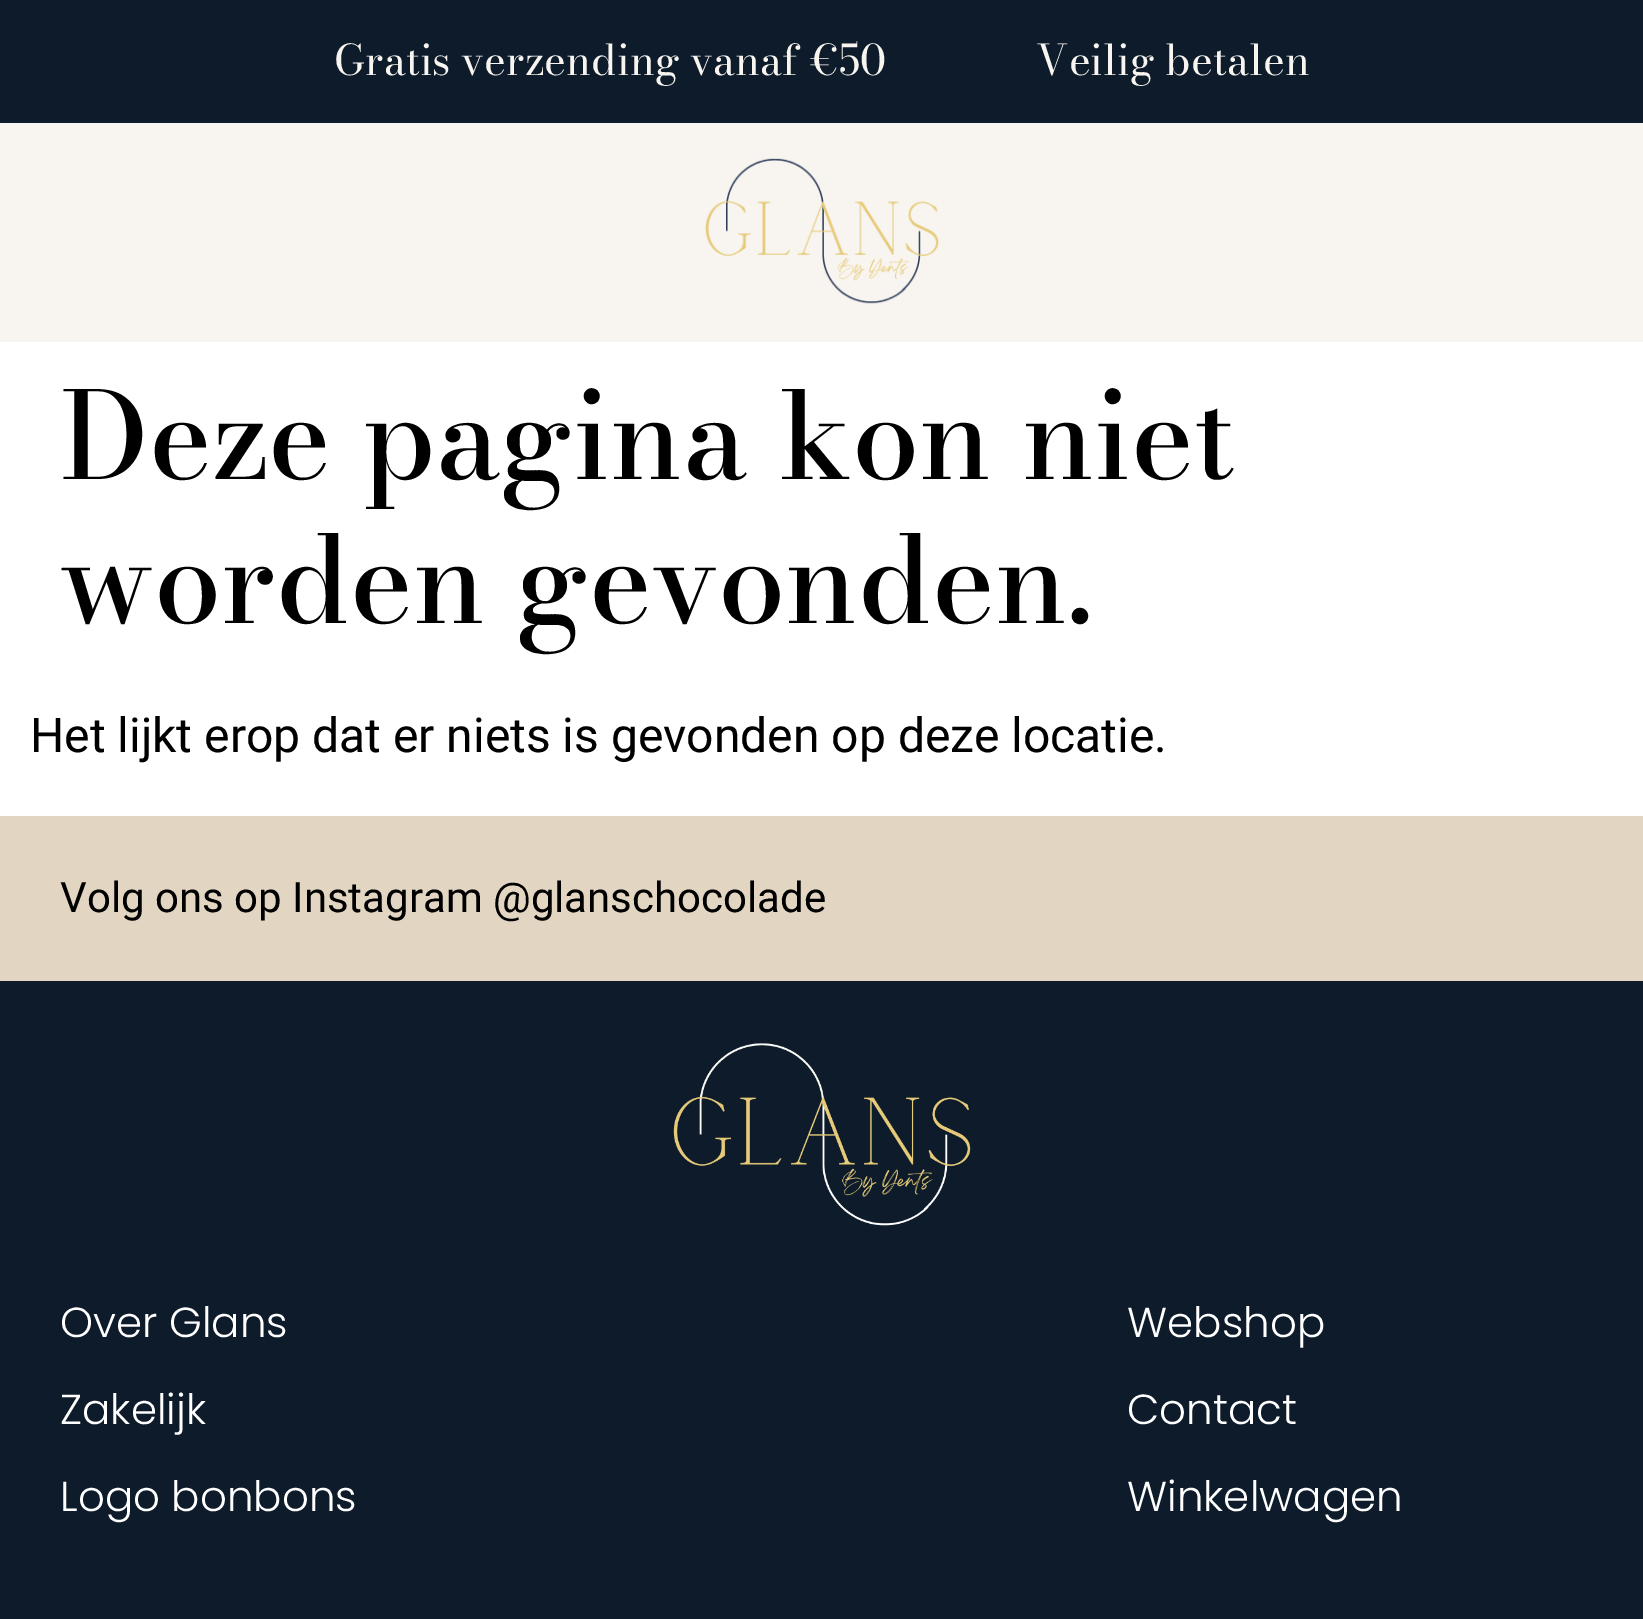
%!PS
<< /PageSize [1643 1619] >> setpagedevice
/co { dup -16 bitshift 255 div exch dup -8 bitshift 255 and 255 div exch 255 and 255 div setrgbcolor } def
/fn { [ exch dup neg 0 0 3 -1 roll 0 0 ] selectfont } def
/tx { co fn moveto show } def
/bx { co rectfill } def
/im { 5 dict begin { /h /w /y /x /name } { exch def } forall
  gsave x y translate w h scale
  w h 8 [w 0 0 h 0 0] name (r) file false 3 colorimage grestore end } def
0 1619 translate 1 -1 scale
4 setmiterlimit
0 0 1643 1619 16#FFFFFF bx
0 0 1643 123 16#0D1B2A bx
0 123 1643 219 16#F8F5F0 bx
(media/1.raw) 705 158 234 146 im
0 816 1643 165 16#E2D6C3 bx
0 981 1643 638 16#0D1B2A bx
(media/2.raw) 673 1043 298 183 im
(Gratis verzending vanaf €50) 334 75 /BodoniModa-Regular 42 16#F8F5F0 tx
(Veilig betalen) 1036 75 /BodoniModa-Regular 42 16#F8F5F0 tx
(Deze pagina kon niet) 60 479 /BodoniModa-Medium 120 16#000000 tx
(worden gevonden.) 60 623 /BodoniModa-Medium 120 16#000000 tx
(Het lijkt erop dat er niets is gevonden op deze locatie.) 30 752 /Roboto-Regular 48 16#000000 tx
(Volg ons op Instagram @glanschocolade) 60 912 /Roboto-Regular 42 16#000000 tx
(Over Glans) 60 1337 /Poppins-Light 42 16#FFFFFF tx
(Zakelijk) 60 1424 /Poppins-Light 42 16#FFFFFF tx
(Logo bonbons) 60 1511 /Poppins-Light 42 16#FFFFFF tx
(Webshop) 1127 1337 /Poppins-Light 42 16#FFFFFF tx
(Contact) 1127 1424 /Poppins-Light 42 16#FFFFFF tx
(Winkelwagen) 1127 1511 /Poppins-Light 42 16#FFFFFF tx
showpage
